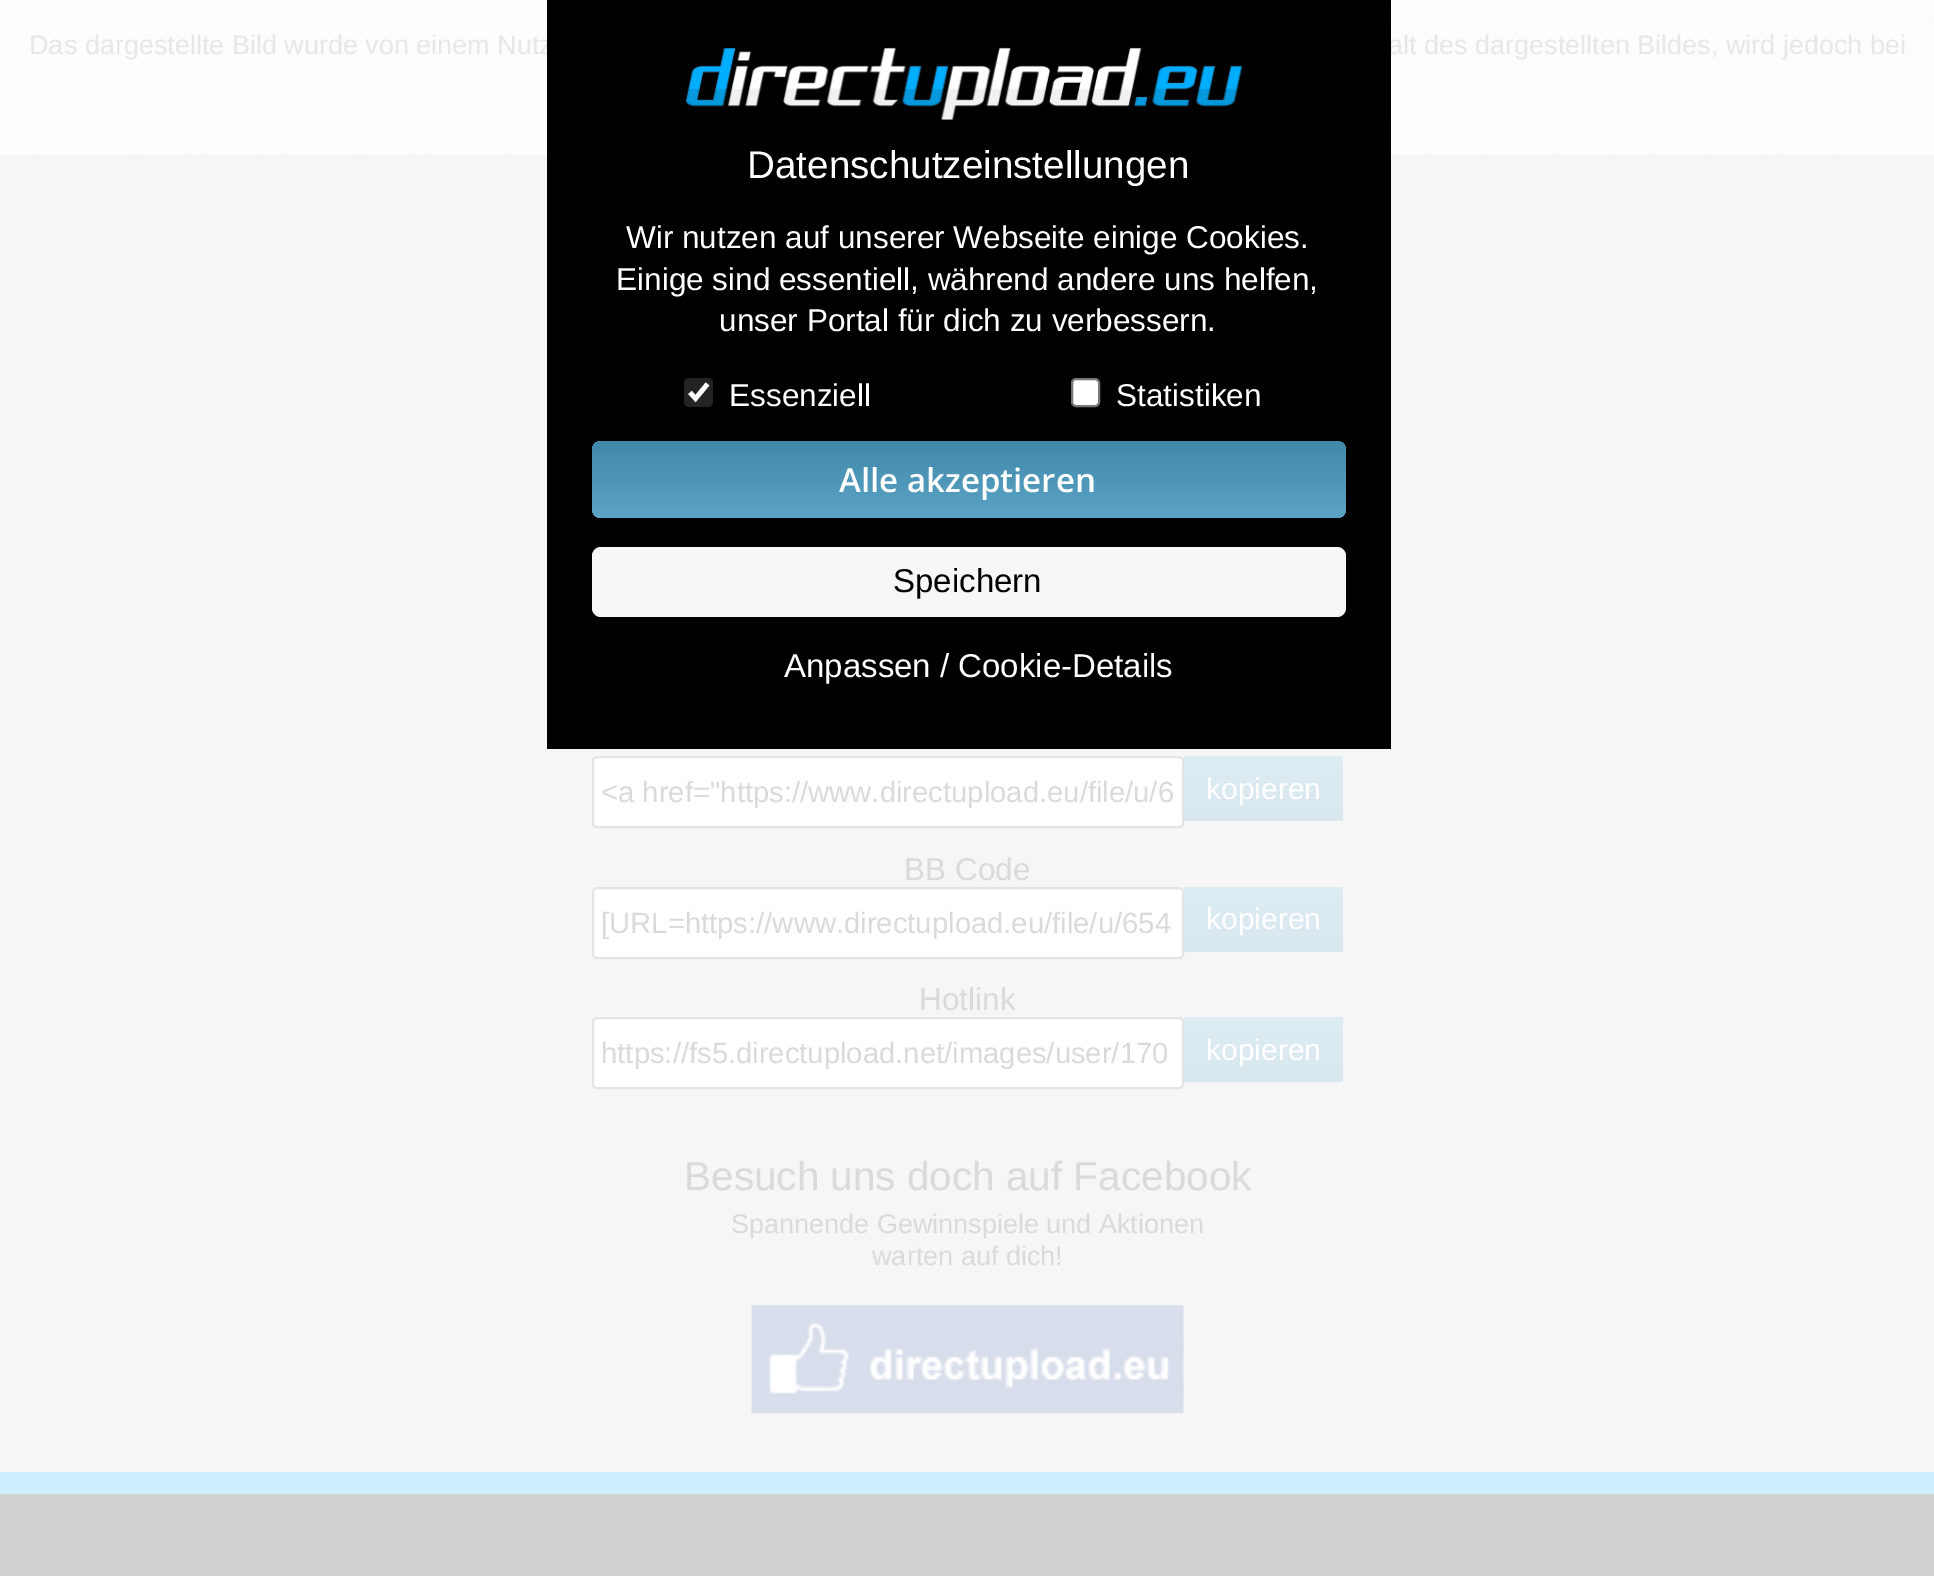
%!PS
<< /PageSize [1934 1576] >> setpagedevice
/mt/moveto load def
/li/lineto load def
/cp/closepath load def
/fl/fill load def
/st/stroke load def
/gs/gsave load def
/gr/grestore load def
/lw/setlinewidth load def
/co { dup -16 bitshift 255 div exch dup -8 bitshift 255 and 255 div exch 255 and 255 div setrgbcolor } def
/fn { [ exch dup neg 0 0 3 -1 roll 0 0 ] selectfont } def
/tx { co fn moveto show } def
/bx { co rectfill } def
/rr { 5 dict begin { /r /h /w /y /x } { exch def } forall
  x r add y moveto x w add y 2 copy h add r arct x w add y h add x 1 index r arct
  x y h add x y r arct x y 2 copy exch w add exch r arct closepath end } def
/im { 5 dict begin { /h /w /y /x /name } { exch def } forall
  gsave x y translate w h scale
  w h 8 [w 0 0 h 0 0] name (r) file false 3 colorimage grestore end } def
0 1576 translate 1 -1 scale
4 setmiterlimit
0 0 1934 1576 16#FFFFFF bx
(media/1.raw) 0 0 1934 155 im
0 155 1934 1317 16#F6F6F6 bx
16#FFFFFF co
593 757 590 70 4 rr gs fl gr
16#E4E4E4 co
2 lw
st
gs 1184 756 mt 1343 756 li 1343 821 li 1184 821 li cp clip newpath
<< /ShadingType 2 /ColorSpace /DeviceRGB /Coords [1263 756 1263 821] /Extend [true true] /Function << /FunctionType 2 /Domain [0 1] /C0 [.871 .929 .957] /C1 [.851 .906 .933] /N 1 >> >> shfill gr
16#FFFFFF co
593 888 590 70 4 rr gs fl gr
16#E4E4E4 co
st
gs 1184 887 mt 1343 887 li 1343 952 li 1184 952 li cp clip newpath
<< /ShadingType 2 /ColorSpace /DeviceRGB /Coords [1263 887 1263 952] /Extend [true true] /Function << /FunctionType 2 /Domain [0 1] /C0 [.871 .929 .957] /C1 [.851 .906 .933] /N 1 >> >> shfill gr
16#FFFFFF co
593 1018 590 70 4 rr gs fl gr
16#E4E4E4 co
st
gs 1184 1017 mt 1343 1017 li 1343 1082 li 1184 1082 li cp clip newpath
<< /ShadingType 2 /ColorSpace /DeviceRGB /Coords [1263 1017 1263 1082] /Extend [true true] /Function << /FunctionType 2 /Domain [0 1] /C0 [.871 .929 .957] /C1 [.851 .906 .933] /N 1 >> >> shfill gr
(media/2.raw) 751 1305 433 109 im
0 1472 1934 22 16#CCEFFF bx
0 1494 1934 82 16#D1D1D1 bx
(Das dargestellte Bild wurde von einem Nutz) 29 54 /LiberationSans-Regular 27 16#E7E7E7 tx
(alt des dargestellten Bildes, wird jedoch bei) 1388 54 /LiberationSans-Regular 27 16#E7E7E7 tx
(<a href="https://www.directupload.eu/file/u/6) 601 802 /LiberationSans-Regular 29.25 16#DADADA tx
(kopieren) 1206 799 /LiberationSans-Regular 30 16#FFFFFF tx
(BB Code) 904 880 /LiberationSans-Regular 31.5 16#DADADA tx
([URL=https://www.directupload.eu/file/u/654) 601 933 /LiberationSans-Regular 29.25 16#DADADA tx
(kopieren) 1206 929 /LiberationSans-Regular 30 16#FFFFFF tx
(Hotlink) 919 1010 /LiberationSans-Regular 31.5 16#DADADA tx
(https://fs5.directupload.net/images/user/170) 601 1063 /LiberationSans-Regular 29.25 16#DADADA tx
(kopieren) 1206 1060 /LiberationSans-Regular 30 16#FFFFFF tx
(Besuch uns doch auf Facebook) 684 1190 /LiberationSans-Regular 40.5 16#DADADA tx
(Spannende Gewinnspiele und Aktionen) 731 1233 /LiberationSans-Regular 27 16#DADADA tx
(warten auf dich!) 872 1265 /LiberationSans-Regular 27 16#DADADA tx
547 0 844 749 16#000000 bx
(media/3.raw) 685 47 558 73 im
(Datenschutzeinstellungen) 747 178 /LiberationSans-Regular 38.6 16#FFFFFF tx
(Wir nutzen auf unserer Webseite einige Cookies.) 626 248 /LiberationSans-Regular 31.5 16#FFFFFF tx
(Einige sind essentiell, während andere uns helfen,) 616 290 /LiberationSans-Regular 31.5 16#FFFFFF tx
(unser Portal für dich zu verbessern.) 719 331 /LiberationSans-Regular 31.5 16#FFFFFF tx
16#232323 co
684 378 29 29 5 rr fl
16#FFFFFF co
4.7 lw
690 392.5 mt 695.5 398.5 li 707.5 384 li st
(Essenziell) 729 406 /LiberationSans-Regular 31.5 16#FFFFFF tx
1072 379 27 27 4 rr gs fl gr
16#767676 co
2 lw
st
(Statistiken) 1116 406 /LiberationSans-Regular 31.5 16#FFFFFF tx
gs 592 441 754 77 9 rr clip newpath
<< /ShadingType 2 /ColorSpace /DeviceRGB /Coords [969 441 969 518] /Extend [true true] /Function << /FunctionType 2 /Domain [0 1] /C0 [.255 .537 .671] /C1 [.357 .643 .776] /N 1 >> >> shfill gr
(Alle akzeptieren) 839 492 /OpenSans-SemiBold 33 16#FFFFFF tx
16#F7F7F7 co
592 547 754 70 9 rr fl
(Speichern) 893 592 /LiberationSans-Regular 33 16#000000 tx
(Anpassen / Cookie-Details) 784 677 /LiberationSans-Regular 33 16#FFFFFF tx
showpage
